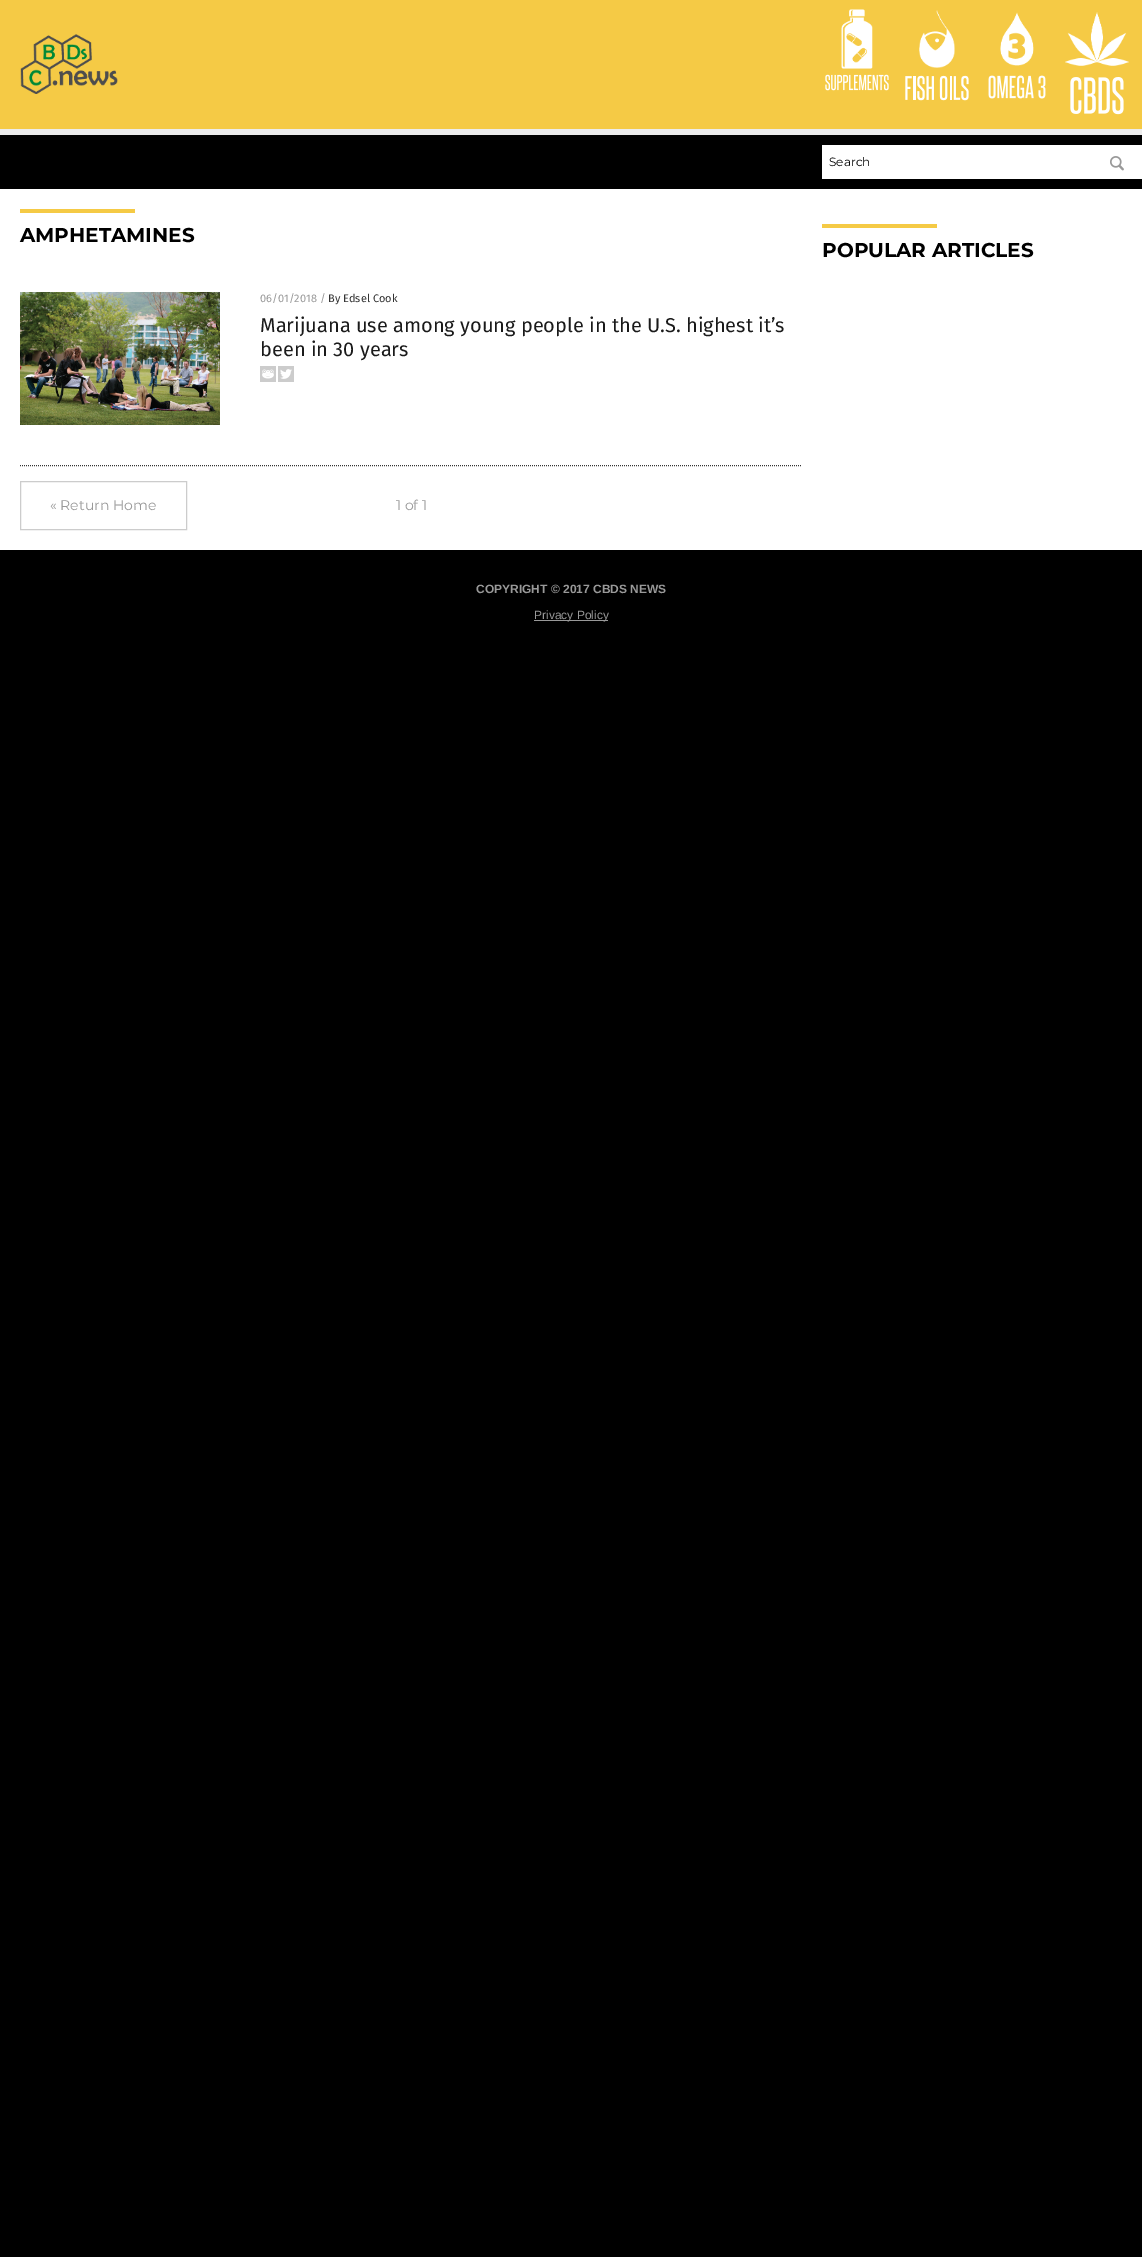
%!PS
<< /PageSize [1142 2257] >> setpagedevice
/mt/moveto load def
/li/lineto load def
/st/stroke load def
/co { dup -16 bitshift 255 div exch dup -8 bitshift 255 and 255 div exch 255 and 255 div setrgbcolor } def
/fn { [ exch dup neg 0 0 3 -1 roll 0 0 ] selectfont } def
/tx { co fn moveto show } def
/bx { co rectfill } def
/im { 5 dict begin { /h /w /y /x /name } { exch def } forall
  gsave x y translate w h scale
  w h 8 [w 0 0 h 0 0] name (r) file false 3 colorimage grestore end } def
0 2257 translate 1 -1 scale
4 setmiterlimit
0 0 1142 2257 16#000000 bx
0 0 1142 129 16#F5CA45 bx
(media/1.raw) 20 34 98 60 im
(media/2.raw) 841 9 32 60 im
(media/3.raw) 825 74 64 17 im
(media/4.raw) 919 10 36 58 im
(media/5.raw) 905 75 64 26 im
(media/6.raw) 1000 12 34 54 im
(media/7.raw) 988 75 58 24 im
(media/8.raw) 1065 12 64 54 im
(media/9.raw) 1070 77 54 38 im
0 129 1142 6 16#ECECEC bx
822 145 320 34 16#FFFFFF bx
(media/10.raw) 1110 156 14 15 im
0 189 1142 361 16#FFFFFF bx
20 209 115 4 16#F5CA45 bx
16#343434 co
[1 1] 0 setdash
20 465.5 mt 802 465.5 li st
(media/11.raw) 20 292 200 133 im
(media/12.raw) 260 366 16 16 im
(media/13.raw) 278 366 16 16 im
16#CCCCCC co
[] 0 setdash
20.5 481.5 166 48 rectstroke
822 224 115 4 16#F5CA45 bx
534 620 74 1 16#999999 bx
(Search) 829 166 /Montserrat-Regular 12 16#000000 tx
(AMPHETAMINES) 20 242 /Montserrat-Bold 20 16#000000 tx
(06/01/2018 /) 260 302 /FiraSans-Regular 11 16#999999 tx
(By Edsel Cook) 328 302 /FiraSans-Regular 11 16#333333 tx
(Marijuana use among young people in the U.S. highest it’s) 260 332 /FiraSans-Regular 20 16#1A1A1A tx
(been in 30 years) 260 356 /FiraSans-Regular 20 16#1A1A1A tx
(« Return Home) 50 510 /Montserrat-Regular 14 16#999999 tx
(1 of 1) 396 510 /Montserrat-Regular 14 16#999999 tx
(POPULAR ARTICLES) 822 257 /Montserrat-Bold 20 16#000000 tx
(COPYRIGHT © 2017 CBDS NEWS) 476 593 /LiberationSans-Bold 12 16#999999 tx
(Privacy Policy) 534 619 /LiberationSans-Regular 12 16#999999 tx
showpage
